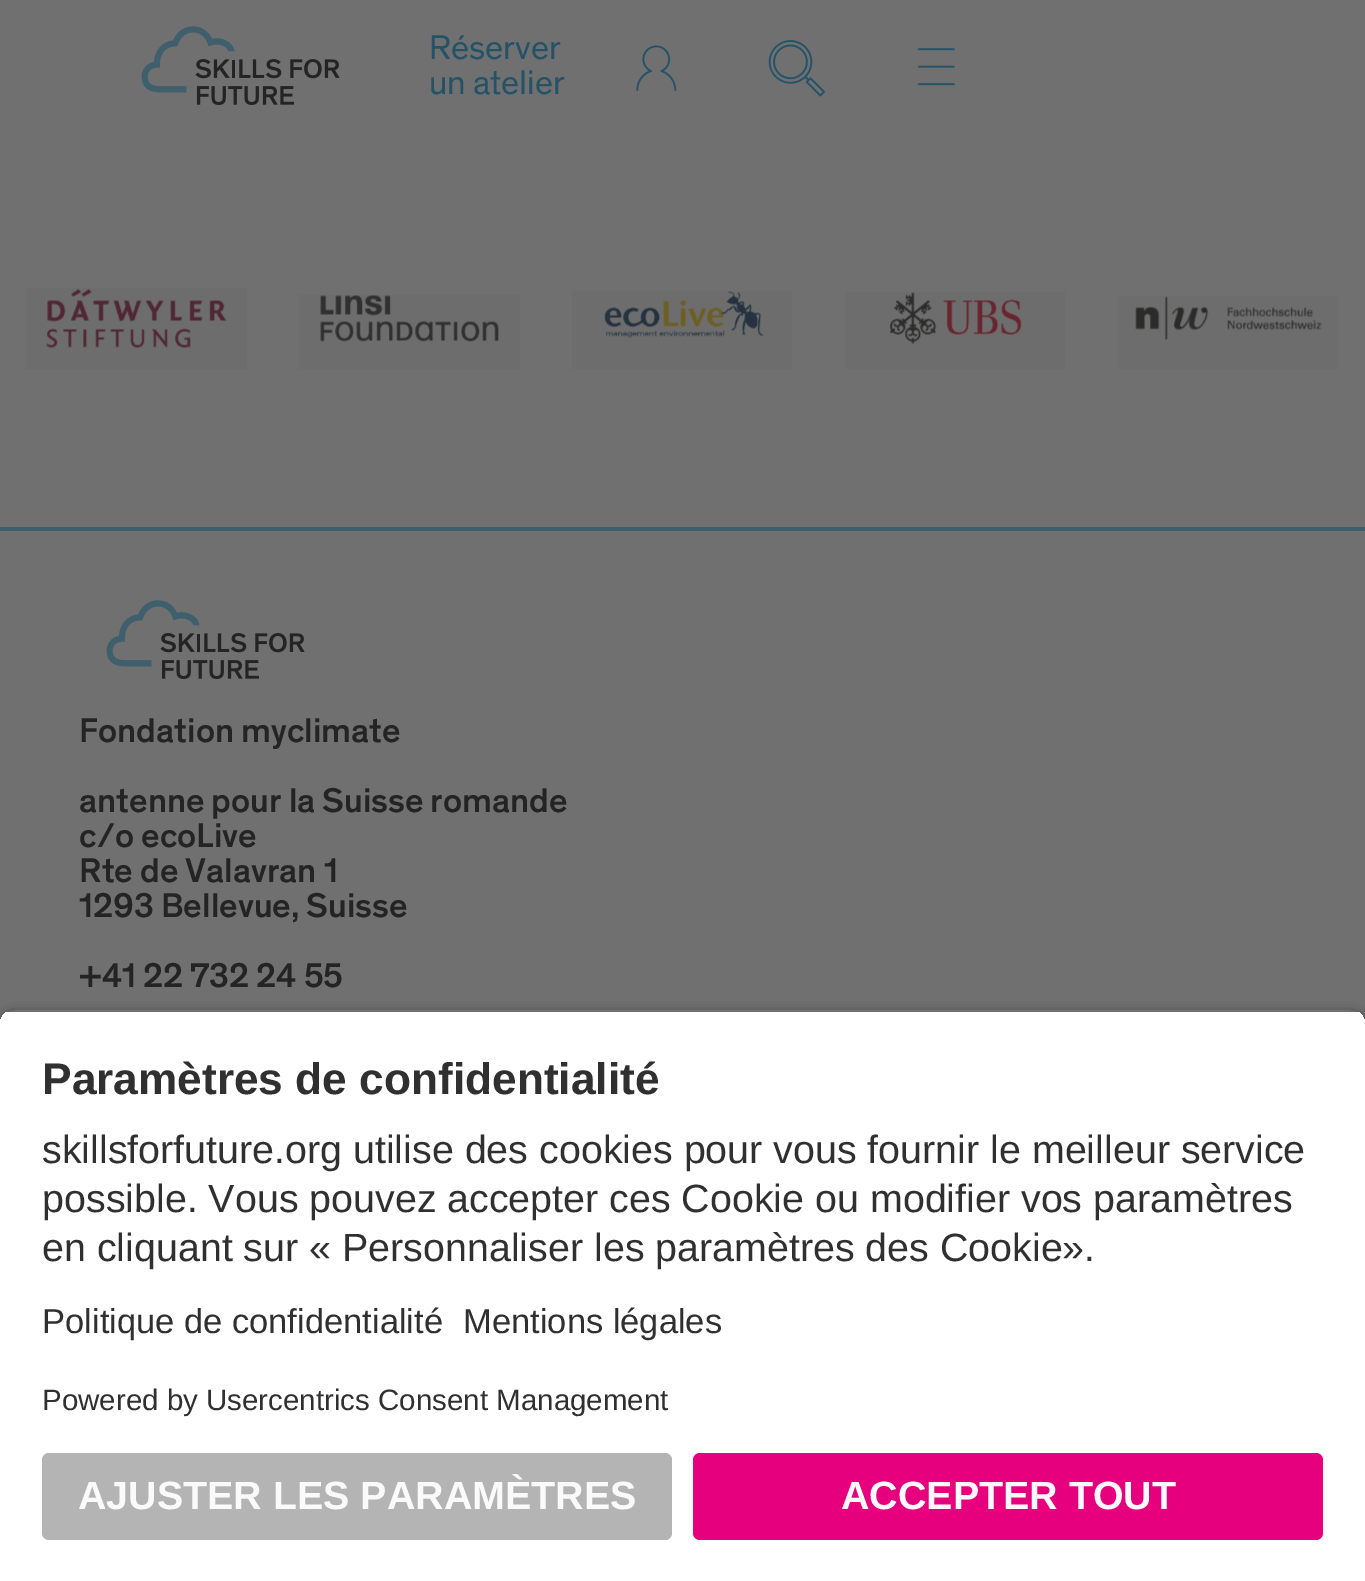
%!PS
<< /PageSize [1365 1581] /PageUsesTransparency true >> setpagedevice
/mt/moveto load def
/li/lineto load def
/ct/curveto load def
/cp/closepath load def
/fl/fill load def
/gs/gsave load def
/gr/grestore load def
/co { dup -16 bitshift 255 div exch dup -8 bitshift 255 and 255 div exch 255 and 255 div setrgbcolor } def
/fn { [ exch dup neg 0 0 3 -1 roll 0 0 ] selectfont } def
/tx { co fn moveto show } def
/bx { co rectfill } def
/al { dup .setfillconstantalpha .setstrokeconstantalpha } def
/rr { 5 dict begin { /r /h /w /y /x } { exch def } forall
  x r add y moveto x w add y 2 copy h add r arct x w add y h add x 1 index r arct
  x y h add x y r arct x y 2 copy exch w add exch r arct closepath end } def
/sh { 12 dict begin { /a /b /q /h /w /y /x } { exch def } forall gsave /was 0 def
  9 -2 -9 { dup b mul 4 div /e exch def 1 sub .425 mul 2.718 exch exp 1 add a .99 .min exch div /now exch def
    1 1 now sub 1 was sub div sub al /was now def
    w h .min e 2 mul add 0 gt { x e sub y e sub w e 2 mul add h e 2 mul add
      q e add b .6 mul add w h .min 2 div e add .min 0 .max rr fill } if } for grestore end } def
/im { 5 dict begin { /h /w /y /x /name } { exch def } forall
  gsave x y translate w h scale
  w h 8 [w 0 0 h 0 0] name (r) file false 3 colorimage grestore end } def
0 .pushpdf14devicefilter
0 1581 translate 1 -1 scale
4 setmiterlimit
0 0 1365 1581 16#707070 bx
(media/1.raw) 141 26 199 79 im
(media/2.raw) 636 45 41 47 im
(media/3.raw) 768 40 57 57 im
(media/4.raw) 917 48 38 38 im
(media/5.raw) 26 288 221 82 im
(media/6.raw) 299 295 221 75 im
(media/7.raw) 572 291 220 79 im
(media/8.raw) 845 292 220 78 im
(media/9.raw) 1118 296 220 74 im
0 527 1365 4 16#3F5F6C bx
(media/1.raw) 106 600 199 79 im
gs
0 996 mt 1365 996 li 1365 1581 li 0 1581 li cp 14 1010 mt 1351 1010 li 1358.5 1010 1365 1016.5 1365 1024 ct 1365 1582 li 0 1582 li 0 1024 li 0 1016.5 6.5 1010 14 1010 ct cp eoclip newpath
16#000000 co
0 1015 1365 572 14 6 .8 sh
gr
gs
14 1010 mt 1351 1010 li 1358.5 1010 1365 1016.5 1365 1024 ct 1365 1281 li 0 1281 li 0 1024 li 0 1016.5 6.5 1010 14 1010 ct cp clip newpath
0 1012 1365 269 16#FFFFFF bx
gr
0 1281 1365 300 16#FFFFFF bx
16#B4B4B4 co
42 1453 630 87 7 rr fl
16#E6007E co
693 1453 630 87 7 rr fl
(Réserver) 429 59 /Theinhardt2-Regular 35 16#245368 tx
(un atelier) 429 94 /Theinhardt2-Regular 35 16#245368 tx
(Fondation myclimate) 79 742 /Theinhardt-Regular 35 16#242424 tx
(antenne pour la Suisse romande) 79 812 /Theinhardt-Regular 35 16#242424 tx
(c/o ecoLive) 79 847 /Theinhardt-Regular 35 16#242424 tx
(Rte de Valavran 1) 79 882 /Theinhardt-Regular 35 16#242424 tx
(1293 Bellevue, Suisse) 79 917 /Theinhardt-Regular 35 16#242424 tx
(+41 22 732 24 55) 79 987 /Theinhardt-Regular 35 16#242424 tx
(Paramètres de confidentialité) 42 1094 /LiberationSans-Bold 44.25 16#303030 tx
(skillsforfuture.org utilise des cookies pour vous fournir le meilleur service) 42 1163 /LiberationSans-Regular 39.4 16#303030 tx
(possible. Vous pouvez accepter ces Cookie ou modifier vos paramètres) 42 1212 /LiberationSans-Regular 39.4 16#303030 tx
(en cliquant sur « Personnaliser les paramètres des Cookie».) 42 1261 /LiberationSans-Regular 39.4 16#303030 tx
(Politique de confidentialité) 42 1333 /LiberationSans-Regular 34.5 16#303030 tx
(Mentions légales) 463 1333 /LiberationSans-Regular 34.5 16#303030 tx
(Powered by Usercentrics Consent Management) 42 1410 /LiberationSans-Regular 29.5 16#303030 tx
(AJUSTER LES PARAMÈTRES) 78 1509 /LiberationSans-Bold 39.4 16#FAFAFA tx
(ACCEPTER TOUT) 841 1509 /LiberationSans-Bold 39.4 16#FAFAFA tx
.poppdf14devicefilter showpage
